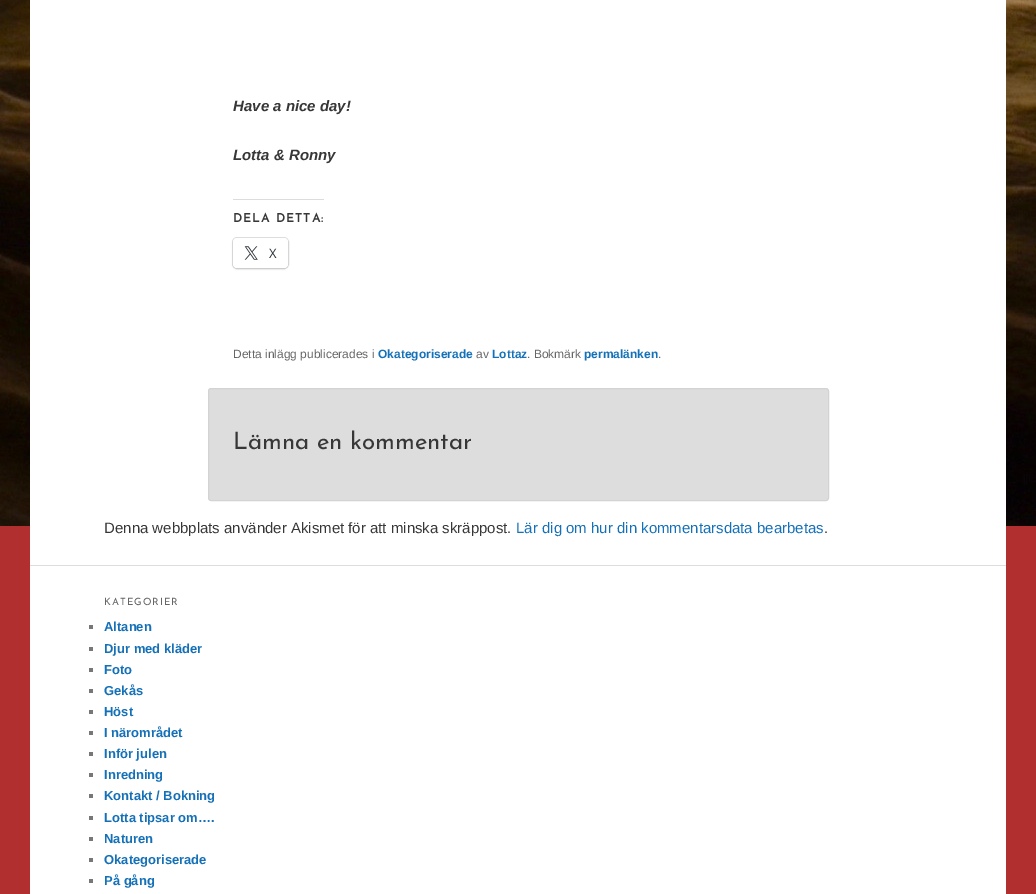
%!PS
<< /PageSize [1036 894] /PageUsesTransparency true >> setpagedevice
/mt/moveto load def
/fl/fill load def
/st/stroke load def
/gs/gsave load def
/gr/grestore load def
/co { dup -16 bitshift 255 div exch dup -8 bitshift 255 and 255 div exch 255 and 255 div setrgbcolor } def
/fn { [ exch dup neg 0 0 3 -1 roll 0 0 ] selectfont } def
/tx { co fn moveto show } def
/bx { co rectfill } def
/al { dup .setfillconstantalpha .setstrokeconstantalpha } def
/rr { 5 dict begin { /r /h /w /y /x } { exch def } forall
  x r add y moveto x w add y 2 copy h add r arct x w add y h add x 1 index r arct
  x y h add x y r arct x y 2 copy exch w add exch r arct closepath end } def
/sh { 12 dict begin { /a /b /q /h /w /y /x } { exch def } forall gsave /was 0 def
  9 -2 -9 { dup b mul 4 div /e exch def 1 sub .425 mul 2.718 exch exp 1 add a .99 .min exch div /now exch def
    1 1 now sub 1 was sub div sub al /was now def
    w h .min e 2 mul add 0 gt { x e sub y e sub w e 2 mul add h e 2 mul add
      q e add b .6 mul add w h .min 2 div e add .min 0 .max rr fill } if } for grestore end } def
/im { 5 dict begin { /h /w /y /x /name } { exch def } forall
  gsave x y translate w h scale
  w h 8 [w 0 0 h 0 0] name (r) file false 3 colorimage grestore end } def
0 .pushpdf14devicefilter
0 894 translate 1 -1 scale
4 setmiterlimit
0 0 1036 894 16#B12F2F bx
(media/1.raw) 0 0 1036 526 im
30 0 976 894 16#FFFFFF bx
233 199 91 1 16#DCDCDE bx
16#E0E0E0 co
232.5 237.5 56 31 4.5 rr st
16#000000 co
233 239 55 30 4 1 .12 sh
16#FFFFFF co
233 238 55 30 4 rr fl
(media/2.raw) 244 246 14 14 im
16#DDDDDD co
208.5 388.5 620 112 2.5 rr gs fl gr
16#D3D3D3 co
st
30 565 976 1 16#DDDDDD bx
89 625 4 4 16#777777 bx
89 647 4 4 16#777777 bx
89 668 4 4 16#777777 bx
89 689 4 4 16#777777 bx
89 710 4 4 16#777777 bx
89 731 4 4 16#777777 bx
89 752 4 4 16#777777 bx
89 773 4 4 16#777777 bx
89 794 4 4 16#777777 bx
89 816 4 4 16#777777 bx
89 837 4 4 16#777777 bx
89 858 4 4 16#777777 bx
89 879 4 4 16#777777 bx
(Have a nice day!) 233 111 /LiberationSans-BoldItalic 15 16#373737 tx
(Lotta & Ronny) 233 160 /LiberationSans-BoldItalic 15 16#373737 tx
/JosefinSans-Bold 12 fn
233 222 mt 1.25 0 (DELA DETTA:) ashow
(X) 269 258 /OpenSans-Regular 13 16#2C3338 tx
(Detta inlägg publicerades i) 233 358 /LiberationSans-Regular 12 16#666666 tx
(Okategoriserade) 378 358 /LiberationSans-Bold 12 16#1470B7 tx
(av) 476 358 /LiberationSans-Regular 12 16#666666 tx
(Lottaz) 492 358 /LiberationSans-Bold 12 16#1470B7 tx
(. Bokmärk) 527 358 /LiberationSans-Regular 12 16#666666 tx
(permalänken) 584 358 /LiberationSans-Bold 12 16#1470B7 tx
(.) 658 358 /LiberationSans-Regular 12 16#666666 tx
(Lämna en kommentar) 233 449 /JosefinSans-Thin 24 16#373737 tx
(Denna webbplats använder Akismet för att minska skräppost.) 104 533 /LiberationSans-Regular 15 16#373737 tx
(Lär dig om hur din kommentarsdata bearbetas) 516 533 /LiberationSans-Regular 15 16#1470B7 tx
(.) 824 533 /LiberationSans-Regular 15 16#373737 tx
/JosefinSans-Thin 10 fn
16#666666 co
104 605 mt 1 0 (KATEGORIER) ashow
(Altanen) 104 631 /LiberationSans-Bold 13 16#1470B7 tx
(Djur med kläder) 104 653 /LiberationSans-Bold 13 16#1470B7 tx
(Foto) 104 674 /LiberationSans-Bold 13 16#1470B7 tx
(Gekås) 104 695 /LiberationSans-Bold 13 16#1470B7 tx
(Höst) 104 716 /LiberationSans-Bold 13 16#1470B7 tx
(I närområdet) 104 737 /LiberationSans-Bold 13 16#1470B7 tx
(Inför julen) 104 758 /LiberationSans-Bold 13 16#1470B7 tx
(Inredning) 104 779 /LiberationSans-Bold 13 16#1470B7 tx
(Kontakt / Bokning) 104 800 /LiberationSans-Bold 13 16#1470B7 tx
(Lotta tipsar om….) 104 822 /LiberationSans-Bold 13 16#1470B7 tx
(Naturen) 104 843 /LiberationSans-Bold 13 16#1470B7 tx
(Okategoriserade) 104 864 /LiberationSans-Bold 13 16#1470B7 tx
(På gång) 104 885 /LiberationSans-Bold 13 16#1470B7 tx
.poppdf14devicefilter showpage
